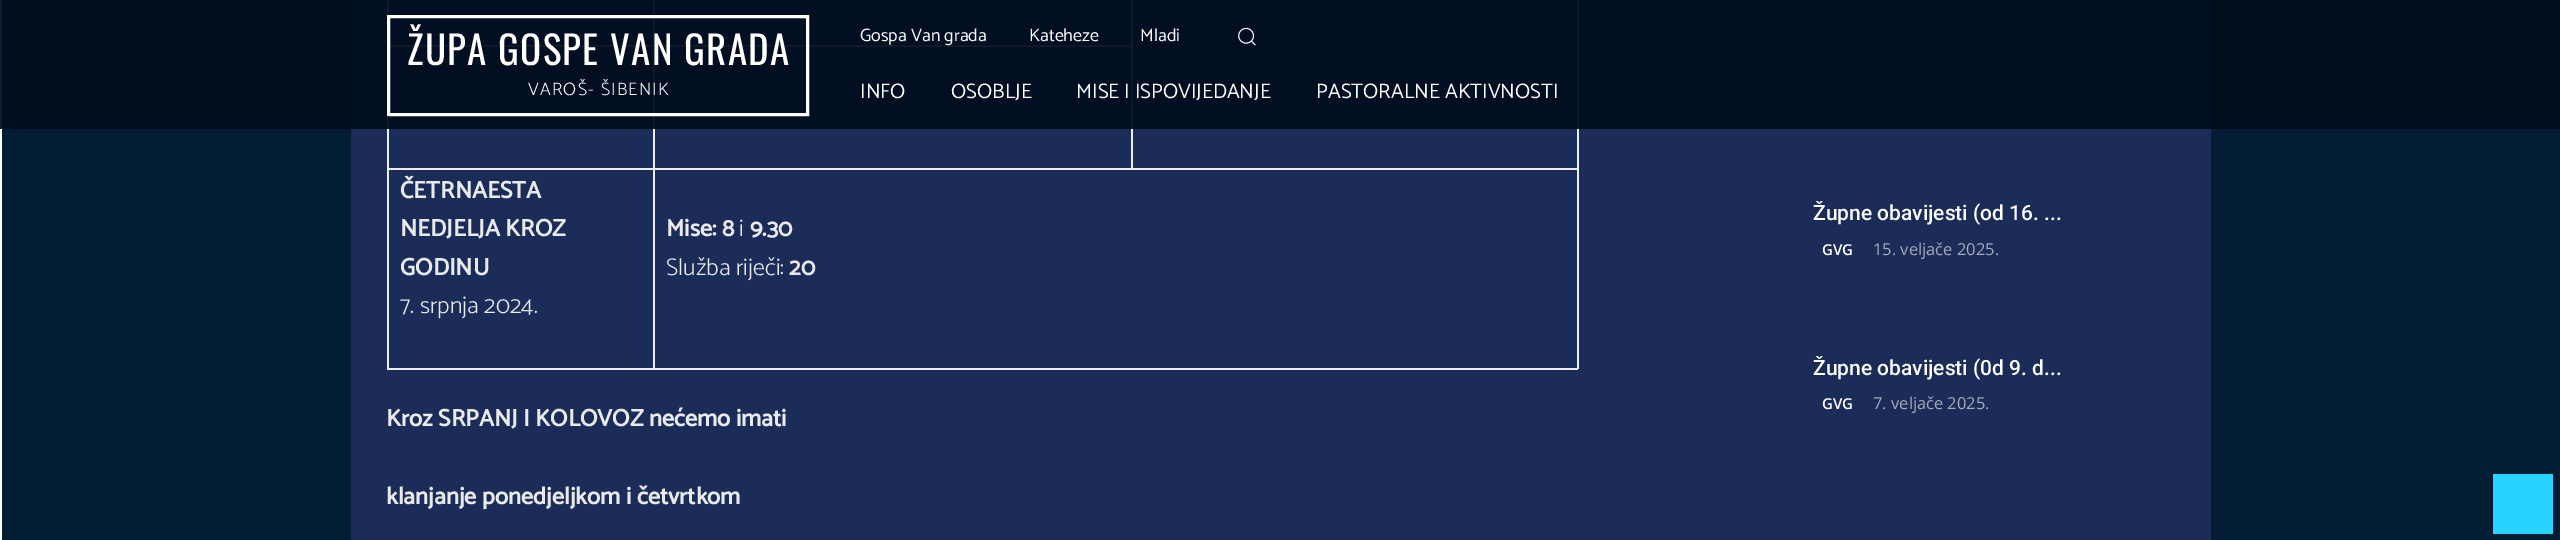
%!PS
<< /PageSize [2560 540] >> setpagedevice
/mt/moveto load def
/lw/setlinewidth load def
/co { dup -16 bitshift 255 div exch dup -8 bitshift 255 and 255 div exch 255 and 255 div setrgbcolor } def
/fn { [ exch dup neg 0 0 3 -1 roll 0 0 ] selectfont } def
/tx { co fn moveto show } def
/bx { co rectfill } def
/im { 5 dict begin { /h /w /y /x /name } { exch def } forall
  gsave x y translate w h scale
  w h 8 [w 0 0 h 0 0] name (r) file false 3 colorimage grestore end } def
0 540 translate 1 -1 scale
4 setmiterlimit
0 0 2560 540 16#FFFFFF bx
0 0 2 129 16#0F1B2C bx
2 0 2558 129 16#000D1F bx
351 0 1860 129 16#020E22 bx
653 45 480 2 16#0E1A2A bx
653 45 2 84 16#0E1A2A bx
387 45 267 2 16#0E1A2A bx
653 0 2 47 16#0E1A2A bx
16#FFFFFF co
3 lw
388.5 16.5 419 98 rectstroke
(media/1.raw) 1238 27 18 19 im
2 129 2558 411 16#031D35 bx
351 129 1860 411 16#1C2C59 bx
387 116 2 13 16#0E1A2A bx
653 168 925 2 16#EDEDED bx
1131 129 2 41 16#EDEDED bx
1131 0 2 129 16#0E1A2A bx
1577 129 2 240 16#EDEDED bx
653 368 925 2 16#EDEDED bx
653 168 2 201 16#EDEDED bx
387 168 267 2 16#EDEDED bx
653 129 2 41 16#EDEDED bx
387 0 2 15 16#0E1A2A bx
1577 0 2 129 16#0E1A2A bx
387 368 267 2 16#EDEDED bx
387 129 2 240 16#EDEDED bx
2493 474 60 60 16#28D4FF bx
/Oswald-Regular 39 fn
16#FFFFFF co
407 65 mt 1.35 0 (ŽUPA GOSPE VAN GRADA) ashow
/Catamaran-Light 18 fn
528 95 mt 1.25 0 (VAROŠ- ŠIBENIK) ashow
(Gospa Van grada) 860 41 /Catamaran-Regular 18 16#FFFFFF tx
(Kateheze) 1029 41 /Catamaran-Regular 18 16#FFFFFF tx
(Mladi) 1140 41 /Catamaran-Regular 18 16#FFFFFF tx
(INFO) 860 98 /Catamaran-Regular 21 16#FFFFFF tx
(OSOBLJE) 951 98 /Catamaran-Regular 21 16#FFFFFF tx
(MISE I ISPOVIJEDANJE) 1076 98 /Catamaran-Regular 21 16#FFFFFF tx
(PASTORALNE AKTIVNOSTI) 1316 98 /Catamaran-Regular 21 16#FFFFFF tx
(ČETRNAESTA) 400 198 /Catamaran-Bold 24 16#E8EAEE tx
(NEDJELJA KROZ) 400 236 /Catamaran-Bold 24 16#E8EAEE tx
(GODINU) 400 275 /Catamaran-Bold 24 16#E8EAEE tx
(7. srpnja 2024.) 400 313 /Catamaran-Light 24 16#E8EAEE tx
(Mise: 8) 666 236 /Catamaran-Bold 24 16#E8EAEE tx
(i) 739 236 /Catamaran-Light 24 16#E8EAEE tx
(9.30) 750 236 /Catamaran-Bold 24 16#E8EAEE tx
(Služba riječi:) 666 275 /Catamaran-Light 24 16#E8EAEE tx
(20) 789 275 /Catamaran-Bold 24 16#E8EAEE tx
(Kroz SRPANJ I KOLOVOZ nećemo imati) 386 426 /Catamaran-Bold 24 16#E8EAEE tx
(klanjanje ponedjeljkom i četvrtkom) 386 504 /Catamaran-Bold 24 16#E8EAEE tx
(Župne obavijesti \(od 16. ...) 1813 220 /Roboto-Medium 21 16#FFFFFF tx
(GVG) 1822 255 /OpenSans-SemiBold 15 16#FFFFFF tx
(15. veljače 2025.) 1873 255 /OpenSans-Regular 16.5 16#A4ABBD tx
(Župne obavijesti \(0d 9. d...) 1813 375 /Roboto-Medium 21 16#FFFFFF tx
(GVG) 1822 409 /OpenSans-SemiBold 15 16#FFFFFF tx
(7. veljače 2025.) 1873 409 /OpenSans-Regular 16.5 16#A4ABBD tx
showpage
